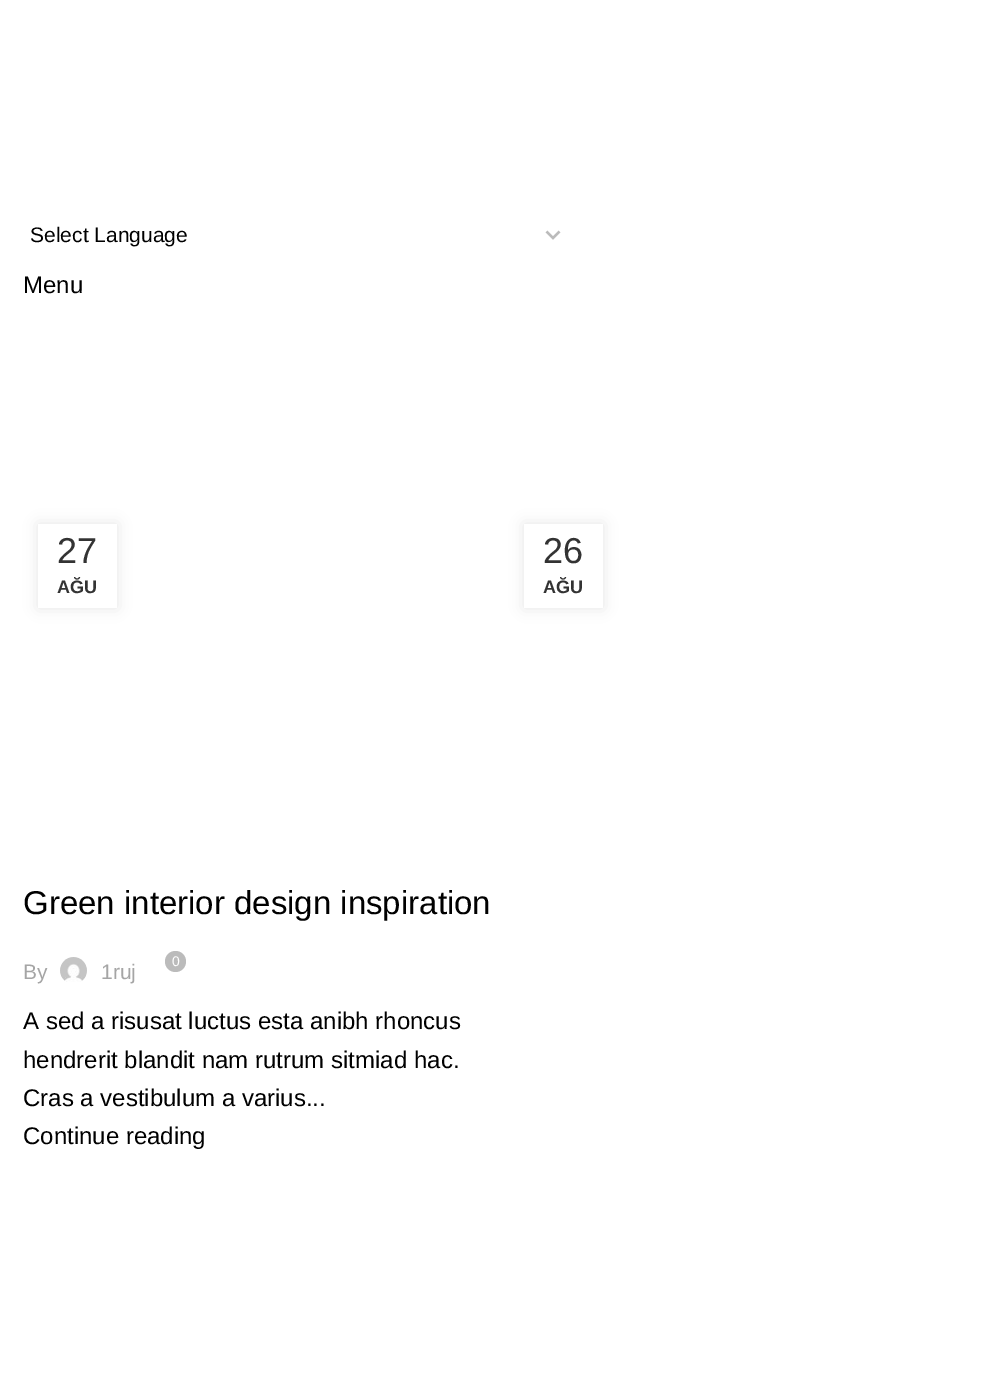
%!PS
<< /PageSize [1001 1381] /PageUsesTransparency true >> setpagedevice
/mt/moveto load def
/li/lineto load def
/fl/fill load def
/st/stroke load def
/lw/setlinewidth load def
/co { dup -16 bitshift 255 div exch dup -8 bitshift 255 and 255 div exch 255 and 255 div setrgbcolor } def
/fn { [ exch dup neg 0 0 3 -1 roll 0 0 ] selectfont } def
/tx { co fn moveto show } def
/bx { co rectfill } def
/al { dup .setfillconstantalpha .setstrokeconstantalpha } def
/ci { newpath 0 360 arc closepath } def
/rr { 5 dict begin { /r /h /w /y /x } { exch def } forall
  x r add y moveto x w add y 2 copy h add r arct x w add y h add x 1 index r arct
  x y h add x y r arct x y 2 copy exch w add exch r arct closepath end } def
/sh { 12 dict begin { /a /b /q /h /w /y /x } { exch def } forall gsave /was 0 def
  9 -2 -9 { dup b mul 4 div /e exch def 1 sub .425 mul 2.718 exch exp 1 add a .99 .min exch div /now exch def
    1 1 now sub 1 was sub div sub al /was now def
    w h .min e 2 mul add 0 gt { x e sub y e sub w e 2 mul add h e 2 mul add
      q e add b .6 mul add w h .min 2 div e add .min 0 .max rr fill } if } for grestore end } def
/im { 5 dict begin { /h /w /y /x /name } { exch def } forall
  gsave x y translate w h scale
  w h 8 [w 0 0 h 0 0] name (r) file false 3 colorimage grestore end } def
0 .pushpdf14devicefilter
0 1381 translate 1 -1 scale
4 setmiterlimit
0 0 1001 1381 16#FFFFFF bx
16#BBBBBB co
2.2 lw
546.5 231.5 mt 553 238 li 559.5 231.5 li st
16#000000 co
38 524 79 84 0 7 .1 sh
38 524 79 84 16#FFFFFF bx
16#BBBBBB co
175.5 961.5 10.5 ci fl
(media/1.raw) 60 957 27 25 im
16#000000 co
524 524 79 84 0 7 .1 sh
524 524 79 84 16#FFFFFF bx
(Select Language) 30 242 /LiberationSans-Regular 21 16#000000 tx
(Menu) 23 293 /LiberationSans-Regular 24 16#000000 tx
(27) 57 563 /LiberationSans-Regular 36 16#333333 tx
(AĞU) 57 593 /LiberationSans-Bold 18 16#333333 tx
(Green interior design inspiration) 23 914 /LiberationSans-Regular 33 16#000000 tx
(0) 172 966 /LiberationSans-Regular 14 16#FFFFFF tx
(By) 23 979 /LiberationSans-Regular 21 16#A5A5A5 tx
(1ruj) 101 979 /LiberationSans-Regular 21 16#A5A5A5 tx
(A sed a risusat luctus esta anibh rhoncus) 23 1029 /LiberationSans-Regular 24 16#000000 tx
(hendrerit blandit nam rutrum sitmiad hac.) 23 1068 /LiberationSans-Regular 24 16#000000 tx
(Cras a vestibulum a varius...) 23 1106 /LiberationSans-Regular 24 16#000000 tx
(Continue reading) 23 1144 /LiberationSans-Regular 24 16#000000 tx
(26) 543 563 /LiberationSans-Regular 36 16#333333 tx
(AĞU) 543 593 /LiberationSans-Bold 18 16#333333 tx
.poppdf14devicefilter showpage
